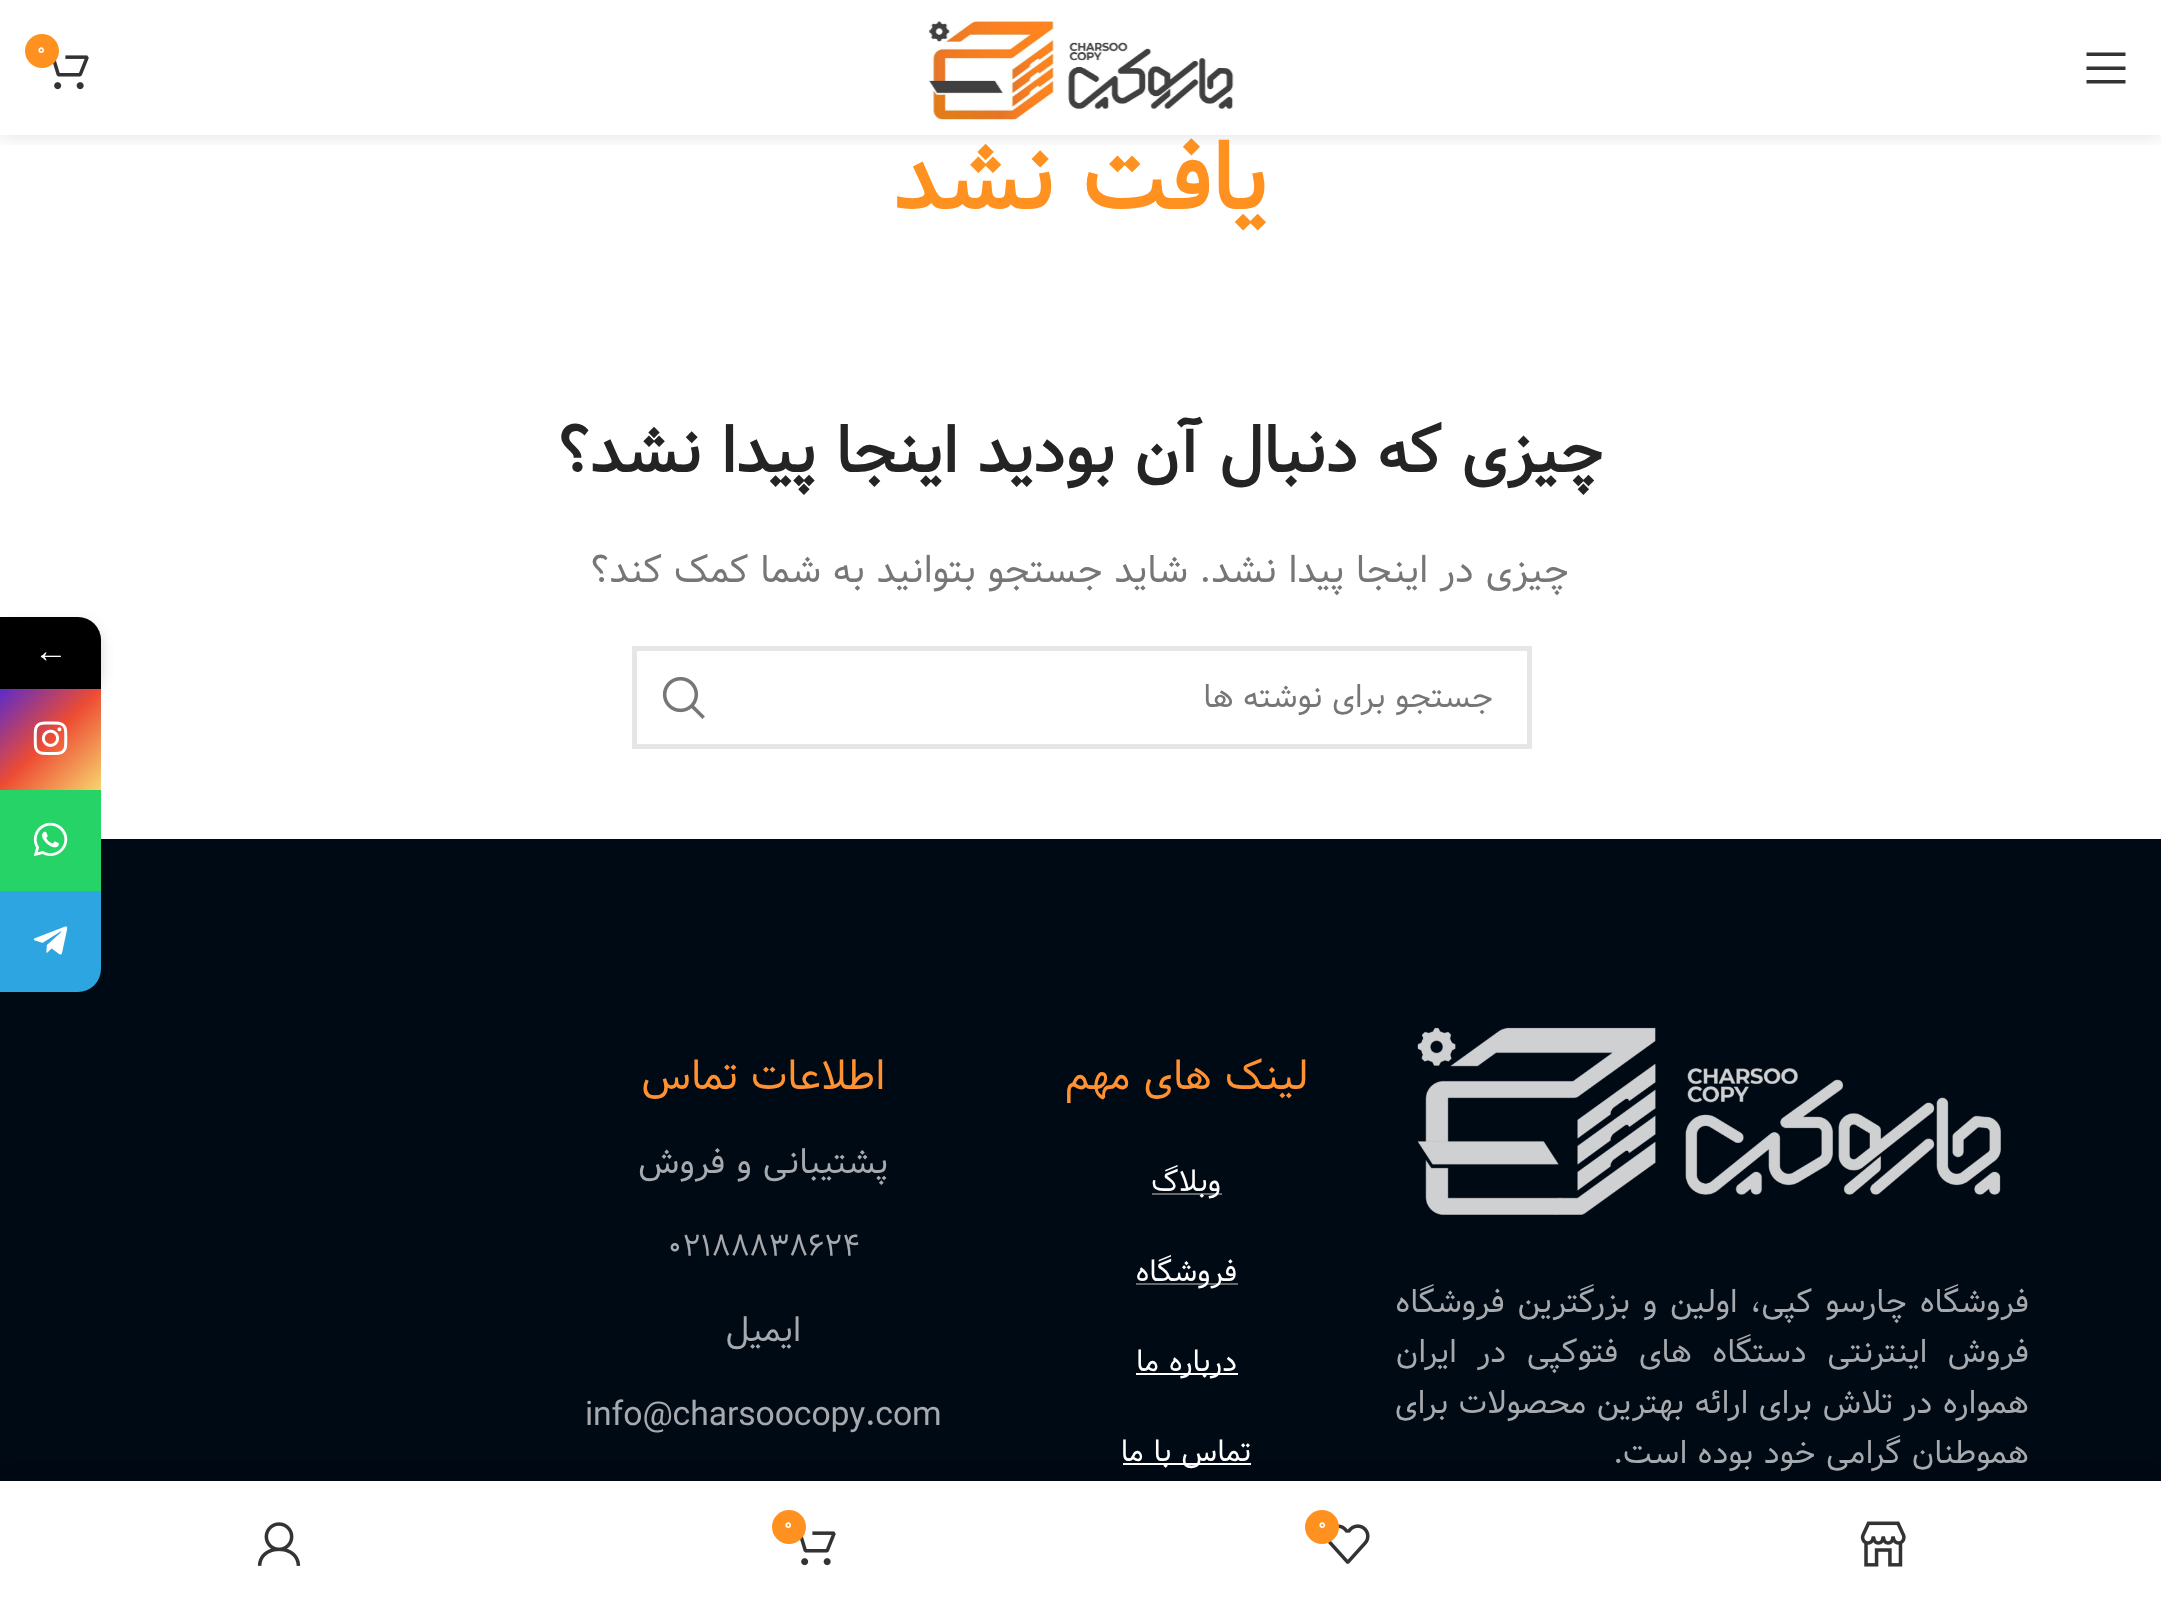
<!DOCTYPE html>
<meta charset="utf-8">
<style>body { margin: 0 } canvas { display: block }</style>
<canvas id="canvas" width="2161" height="1603"></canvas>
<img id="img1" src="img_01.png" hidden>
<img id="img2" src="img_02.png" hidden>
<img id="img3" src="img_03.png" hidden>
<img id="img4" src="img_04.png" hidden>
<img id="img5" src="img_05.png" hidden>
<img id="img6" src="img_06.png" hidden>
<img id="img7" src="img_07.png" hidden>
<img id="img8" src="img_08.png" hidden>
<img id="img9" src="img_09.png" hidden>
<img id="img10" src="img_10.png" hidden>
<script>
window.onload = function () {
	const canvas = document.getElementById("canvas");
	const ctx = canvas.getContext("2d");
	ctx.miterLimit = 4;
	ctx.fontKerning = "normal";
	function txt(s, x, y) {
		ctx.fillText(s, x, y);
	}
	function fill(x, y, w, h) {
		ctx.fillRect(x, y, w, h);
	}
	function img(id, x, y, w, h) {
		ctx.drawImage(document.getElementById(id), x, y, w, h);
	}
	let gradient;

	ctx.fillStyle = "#FFFFFF";
	fill(0, 0, 2161, 1603);
	ctx.save();
	ctx.beginPath();
	ctx.rect(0, 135, 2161, 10);
	ctx.clip();
	ctx.fillStyle = "rgba(0, 0, 0, 0.1)";
	ctx.filter = "blur(9px)";
	ctx.beginPath();
	ctx.rect(0, 2, 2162, 135);
	ctx.fill();
	ctx.filter = "none";
	ctx.restore();
	img("img1", 928, 21, 306, 102);
	img("img2", 53, 55, 36, 35);
	ctx.fillStyle = "#FE911F";
	ctx.beginPath();
	ctx.arc(42, 51, 17, 0, Math.PI * 2);
	ctx.fill();
	ctx.fillStyle = "#333333";
	ctx.beginPath();
	ctx.moveTo(2086.5, 56);
	ctx.lineTo(2125.5, 56);
	ctx.lineTo(2125.5, 52.5);
	ctx.lineTo(2086.5, 52.5);
	ctx.closePath();
	ctx.moveTo(2086.5, 70);
	ctx.lineTo(2125.5, 70);
	ctx.lineTo(2125.5, 66.5);
	ctx.lineTo(2086.5, 66.5);
	ctx.closePath();
	ctx.moveTo(2086.5, 83.5);
	ctx.lineTo(2125.5, 83.5);
	ctx.lineTo(2125.5, 80);
	ctx.lineTo(2086.5, 80);
	ctx.closePath();
	ctx.fill();
	ctx.strokeStyle = "#E6E6E6";
	ctx.lineWidth = 5;
	ctx.strokeRect(634.5, 648.5, 895, 98);
	img("img3", 662, 677, 43, 42);
	ctx.fillStyle = "#000A14";
	fill(0, 839, 2161, 642);
	img("img4", 1417, 1027, 584, 188);
	ctx.fillStyle = "#696969";
	fill(1152, 1193, 70, 2);
	fill(1136, 1283, 102, 2);
	ctx.fillStyle = "#FFFFFF";
	fill(1136, 1373, 102, 2);
	fill(1123, 1463, 128, 2);
	ctx.fillStyle = "rgba(0, 0, 0, 0.16)";
	ctx.filter = "blur(7px)";
	ctx.beginPath();
	ctx.roundRect(0, 623, 101, 72, 23);
	ctx.fill();
	ctx.filter = "none";
	ctx.fillStyle = "#000000";
	ctx.beginPath();
	ctx.roundRect(0, 617, 101, 72, [0, 23, 0, 0]);
	ctx.fill();
	gradient = ctx.createLinearGradient(0, 687, 101, 789);
	gradient.addColorStop(0, "#582BCD");
	gradient.addColorStop(0.5, "#ED4C33");
	gradient.addColorStop(1, "#F7D36F");
	ctx.fillStyle = gradient;
	fill(0, 689, 101, 101);
	img("img5", 33, 721, 35, 34);
	ctx.fillStyle = "#26D367";
	fill(0, 790, 101, 101);
	img("img6", 33, 822, 35, 35);
	ctx.fillStyle = "#2CA5E0";
	ctx.beginPath();
	ctx.roundRect(0, 891, 101, 101, [0, 0, 23, 0]);
	ctx.fill();
	img("img7", 33, 926, 35, 29);
	ctx.fillStyle = "rgba(0, 0, 0, 0.12)";
	ctx.filter = "blur(10px)";
	ctx.beginPath();
	ctx.rect(0, 1481, 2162, 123);
	ctx.fill();
	ctx.filter = "none";
	ctx.fillStyle = "#FFFFFF";
	fill(0, 1481, 2161, 122);
	img("img8", 1860, 1521, 46, 46);
	img("img9", 1327, 1524, 43, 40);
	ctx.fillStyle = "#FE911F";
	ctx.beginPath();
	ctx.arc(1322, 1527, 17, 0, Math.PI * 2);
	ctx.fill();
	img("img2", 800, 1531, 36, 35);
	ctx.beginPath();
	ctx.arc(789, 1527, 17, 0, Math.PI * 2);
	ctx.fill();
	img("img10", 257, 1522, 44, 44);
	ctx.font = "20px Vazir";
	ctx.fillStyle = "#FFFFFF";
	txt("0", 36, 56);
	ctx.letterSpacing = "-0.1px";
	ctx.wordSpacing = "1px";
	ctx.direction = "rtl";
	ctx.font = "bold 91px Vazir";
	ctx.fillStyle = "#FE911F";
	txt("یافت نشد", 1267, 209);
	ctx.wordSpacing = "0.5px";
	ctx.font = "bold 63px Vazir";
	ctx.fillStyle = "#242424";
	txt("چیزی که دنبال آن بودید اینجا پیدا نشد؟", 1603, 472);
	ctx.font = "37.1px Vazir";
	ctx.fillStyle = "#767676";
	txt("چیزی در اینجا پیدا نشد. شاید جستجو بتوانید به شما کمک کند؟", 1569, 582);
	ctx.letterSpacing = "0px";
	ctx.wordSpacing = "0px";
	ctx.font = "31.5px Vazir";
	txt("جستجو برای نوشته ها", 1493, 707);
	ctx.letterSpacing = "-0.1px";
	ctx.wordSpacing = "3.5px";
	ctx.fillStyle = "#A6A9AD";
	txt("فروشگاه چارسو کپی، اولین و بزرگترین فروشگاه", 2029, 1312);
	ctx.wordSpacing = "11px";
	txt("فروش اینترنتی دستگاه های فتوکپی در ایران", 2029, 1362);
	ctx.wordSpacing = "1px";
	txt("همواره در تلاش برای ارائه بهترین محصولات برای", 2029, 1413);
	txt("هموطنان گرامی خود بوده است.", 2029, 1463);
	ctx.font = "40.5px Vazir";
	ctx.fillStyle = "#FF9130";
	txt("لینک های مهم", 1308, 1089);
	ctx.wordSpacing = "0px";
	ctx.font = "29.25px Vazir";
	ctx.fillStyle = "#FFFFFF";
	txt("وبلاگ", 1221, 1191);
	txt("فروشگاه", 1237, 1281);
	ctx.wordSpacing = "1px";
	txt("درباره ما", 1237, 1371);
	txt("تماس با ما", 1251, 1461);
	ctx.font = "40.5px Vazir";
	ctx.fillStyle = "#FF9130";
	txt("اطلاعات تماس", 885, 1089);
	ctx.font = "33.75px Vazir";
	ctx.fillStyle = "#A6A9AD";
	txt("پشتیبانی و فروش", 888, 1173);
	ctx.wordSpacing = "0px";
	ctx.direction = "ltr";
	ctx.font = "30px Vazir";
	txt("02188838624", 667, 1256);
	ctx.direction = "rtl";
	ctx.font = "33.75px Vazir";
	txt("ایمیل", 801, 1341);
	ctx.direction = "ltr";
	txt("info@charsoocopy.com", 585, 1425);
	ctx.font = "33.75px Liberation Serif";
	ctx.fillStyle = "#FFFFFF";
	txt("←", 34, 662);
	ctx.letterSpacing = "0px";
	ctx.font = "20px Vazir";
	txt("0", 1317, 1531);
	txt("0", 783, 1531);
};
</script>
